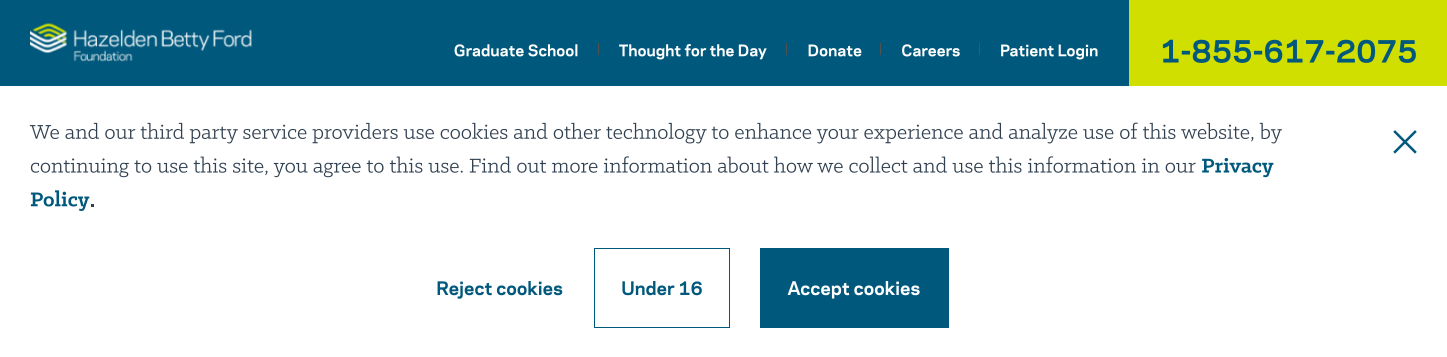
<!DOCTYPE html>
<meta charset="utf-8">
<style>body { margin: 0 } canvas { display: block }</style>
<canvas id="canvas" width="1447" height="357"></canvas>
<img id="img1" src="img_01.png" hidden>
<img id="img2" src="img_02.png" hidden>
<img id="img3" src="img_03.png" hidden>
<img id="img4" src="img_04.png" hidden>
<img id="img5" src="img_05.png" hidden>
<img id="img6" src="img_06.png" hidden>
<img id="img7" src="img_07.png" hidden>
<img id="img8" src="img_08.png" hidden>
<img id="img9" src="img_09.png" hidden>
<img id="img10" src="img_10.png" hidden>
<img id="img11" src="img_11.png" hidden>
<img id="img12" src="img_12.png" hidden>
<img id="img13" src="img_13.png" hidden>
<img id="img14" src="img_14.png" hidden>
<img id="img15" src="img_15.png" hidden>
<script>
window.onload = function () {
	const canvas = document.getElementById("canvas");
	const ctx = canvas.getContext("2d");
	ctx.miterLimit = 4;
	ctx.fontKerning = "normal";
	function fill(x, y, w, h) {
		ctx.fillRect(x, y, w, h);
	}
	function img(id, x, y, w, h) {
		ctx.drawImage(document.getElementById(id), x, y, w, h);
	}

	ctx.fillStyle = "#00587C";
	fill(0, 0, 1447, 357);
	img("img1", 30, 23, 222, 39);
	img("img2", 454, 44, 124, 13);
	ctx.fillStyle = "#525252";
	fill(598, 43, 1, 12);
	img("img3", 619, 44, 148, 16);
	fill(786, 43, 1, 12);
	img("img4", 808, 44, 54, 13);
	fill(880, 43, 1, 12);
	img("img5", 902, 44, 58, 13);
	fill(979, 43, 1, 12);
	img("img6", 1001, 44, 97, 16);
	ctx.fillStyle = "#D0DF00";
	fill(1129, 0, 318, 86);
	img("img7", 1162, 39, 254, 24);
	ctx.fillStyle = "#FFFFFF";
	fill(0, 86, 1447, 271);
	img("img8", 29, 122, 1253, 22);
	img("img9", 30, 156, 1166, 22);
	img("img10", 1202, 157, 72, 21);
	img("img11", 30, 190, 60, 21);
	ctx.fillStyle = "#304050";
	fill(91, 204, 3, 3);
	img("img12", 1393, 130, 24, 24);
	img("img13", 437, 281, 126, 18);
	ctx.strokeStyle = "#00587C";
	ctx.strokeRect(594.5, 248.5, 135, 79);
	img("img14", 622, 281, 80, 15);
	ctx.fillStyle = "#00587C";
	fill(760, 248, 189, 80);
	img("img15", 787, 281, 133, 18);
};
</script>
